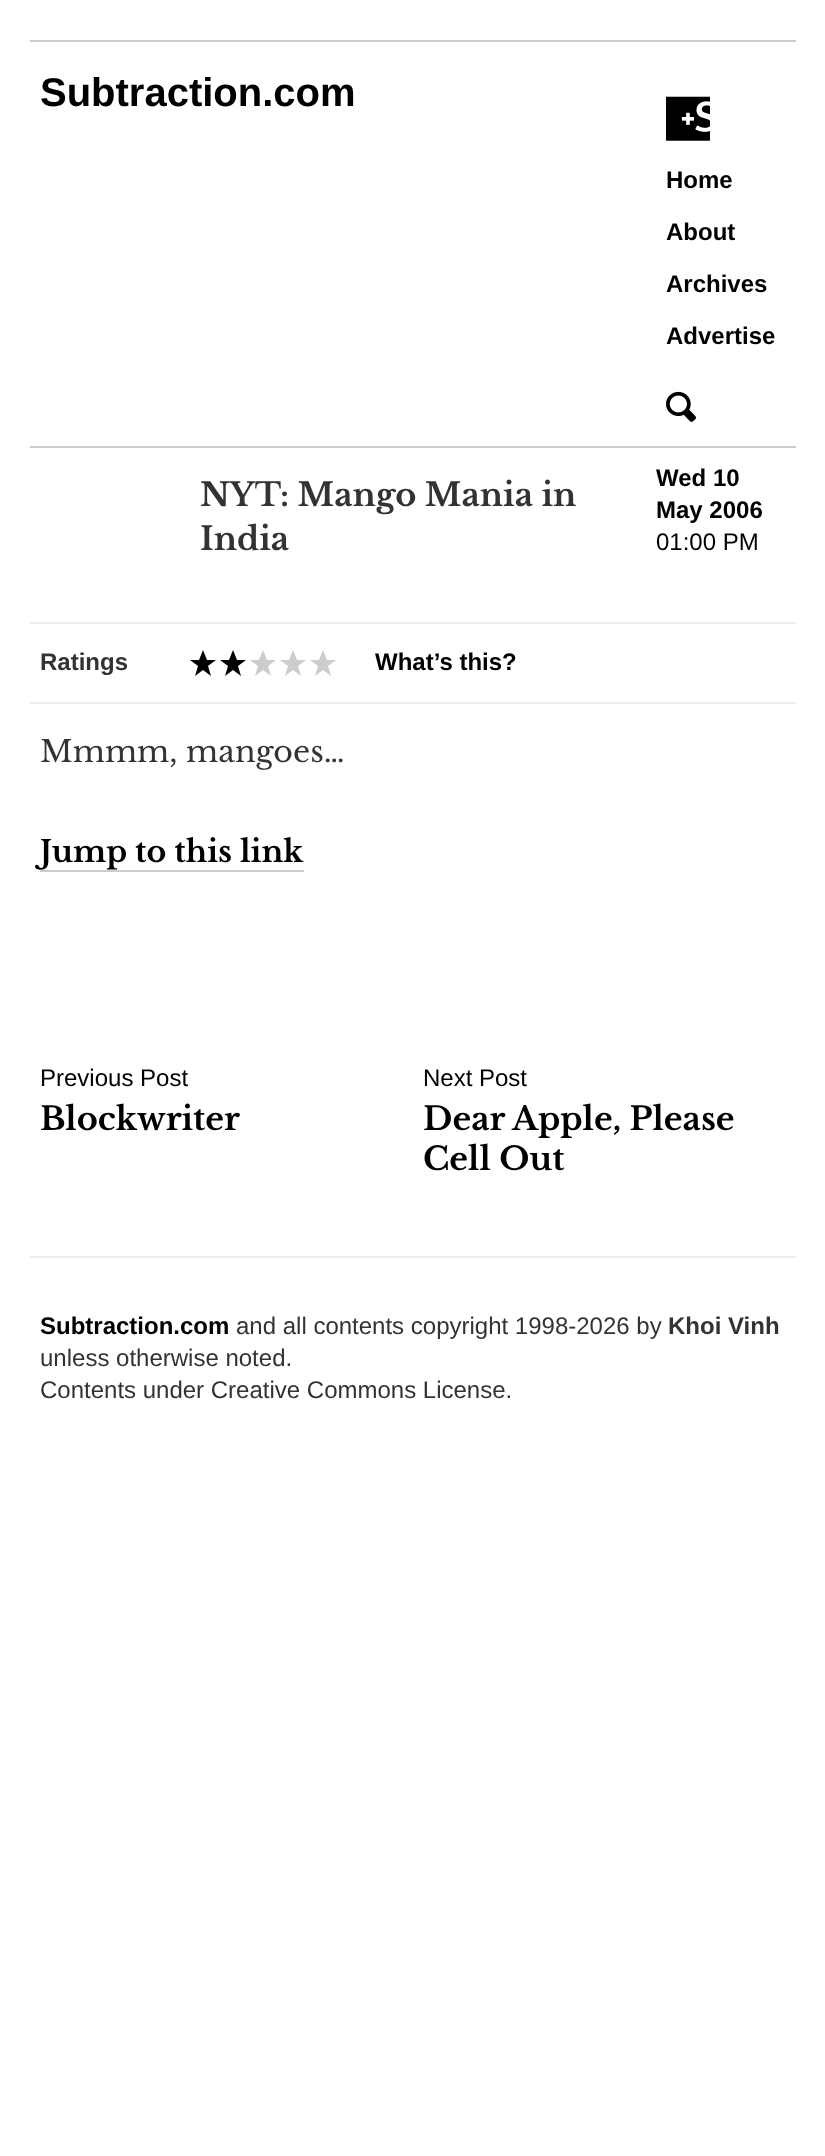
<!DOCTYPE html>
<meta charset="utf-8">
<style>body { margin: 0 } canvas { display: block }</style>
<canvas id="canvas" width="825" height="2156"></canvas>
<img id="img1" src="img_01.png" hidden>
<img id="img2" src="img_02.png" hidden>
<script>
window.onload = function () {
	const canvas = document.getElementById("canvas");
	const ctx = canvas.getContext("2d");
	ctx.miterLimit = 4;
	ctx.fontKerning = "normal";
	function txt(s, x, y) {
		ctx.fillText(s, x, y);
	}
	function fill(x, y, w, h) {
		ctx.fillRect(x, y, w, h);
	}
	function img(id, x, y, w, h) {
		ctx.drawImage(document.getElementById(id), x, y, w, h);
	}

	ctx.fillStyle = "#FFFFFF";
	fill(0, 0, 825, 2156);
	ctx.fillStyle = "#CCCCCC";
	fill(30, 40, 766, 2);
	img("img1", 666, 391, 30, 31);
	img("img2", 666, 96, 44, 45);
	fill(30, 446, 766, 2);
	ctx.fillStyle = "#EDEDED";
	fill(30, 622, 766, 2);
	fill(30, 702, 766, 2);
	ctx.fillStyle = "#000000";
	ctx.beginPath();
	ctx.moveTo(203, 650);
	ctx.lineTo(207, 660);
	ctx.lineTo(216, 660);
	ctx.lineTo(208, 666);
	ctx.lineTo(211, 676);
	ctx.lineTo(203, 670);
	ctx.lineTo(195, 676);
	ctx.lineTo(198, 666);
	ctx.lineTo(190, 660);
	ctx.lineTo(199, 660);
	ctx.closePath();
	ctx.moveTo(233, 650);
	ctx.lineTo(237, 660);
	ctx.lineTo(246, 660);
	ctx.lineTo(238, 666);
	ctx.lineTo(241, 676);
	ctx.lineTo(233, 670);
	ctx.lineTo(225, 676);
	ctx.lineTo(228, 666);
	ctx.lineTo(220, 660);
	ctx.lineTo(229, 660);
	ctx.closePath();
	ctx.fill();
	ctx.fillStyle = "#CCCCCC";
	ctx.beginPath();
	ctx.moveTo(263, 650);
	ctx.lineTo(267, 660);
	ctx.lineTo(276, 660);
	ctx.lineTo(268, 666);
	ctx.lineTo(271, 676);
	ctx.lineTo(263, 670);
	ctx.lineTo(255, 676);
	ctx.lineTo(258, 666);
	ctx.lineTo(250, 660);
	ctx.lineTo(259, 660);
	ctx.closePath();
	ctx.moveTo(293, 650);
	ctx.lineTo(297, 660);
	ctx.lineTo(306, 660);
	ctx.lineTo(298, 666);
	ctx.lineTo(301, 676);
	ctx.lineTo(293, 670);
	ctx.lineTo(285, 676);
	ctx.lineTo(288, 666);
	ctx.lineTo(280, 660);
	ctx.lineTo(289, 660);
	ctx.closePath();
	ctx.moveTo(323, 650);
	ctx.lineTo(327, 660);
	ctx.lineTo(336, 660);
	ctx.lineTo(328, 666);
	ctx.lineTo(331, 676);
	ctx.lineTo(323, 670);
	ctx.lineTo(315, 676);
	ctx.lineTo(318, 666);
	ctx.lineTo(310, 660);
	ctx.lineTo(319, 660);
	ctx.closePath();
	ctx.fill();
	fill(40, 870, 264, 2);
	ctx.fillStyle = "#EDEDED";
	fill(30, 1256, 766, 2);
	ctx.font = "bold 40px Liberation Sans";
	ctx.fillStyle = "#000000";
	txt("Subtraction.com", 40, 106);
	ctx.font = "bold 24px Liberation Sans";
	txt("Home", 666, 188);
	txt("About", 666, 240);
	txt("Archives", 666, 292);
	txt("Advertise", 666, 344);
	ctx.font = "bold 32px Libre Baskerville";
	ctx.fillStyle = "#333333";
	txt("NYT: Mango Mania in", 200, 506);
	txt("India", 200, 550);
	ctx.font = "bold 24px Liberation Sans";
	ctx.fillStyle = "#000000";
	txt("Wed 10", 656, 486);
	txt("May 2006", 656, 518);
	ctx.font = "24px Liberation Sans";
	txt("01:00 PM", 656, 550);
	ctx.font = "bold 24px Liberation Sans";
	ctx.fillStyle = "#333333";
	txt("Ratings", 40, 670);
	ctx.fillStyle = "#000000";
	txt("What’s this?", 375, 670);
	ctx.font = "30px Libre Baskerville";
	ctx.fillStyle = "#333333";
	txt("Mmmm, mangoes…", 40, 762);
	ctx.font = "bold 30px Libre Baskerville";
	ctx.fillStyle = "#000000";
	txt("Jump to this link", 40, 862);
	ctx.font = "24px Liberation Sans";
	txt("Previous Post", 40, 1086);
	ctx.font = "bold 32px Libre Baskerville";
	txt("Blockwriter", 40, 1130);
	ctx.font = "24px Liberation Sans";
	txt("Next Post", 423, 1086);
	ctx.font = "bold 32px Libre Baskerville";
	txt("Dear Apple, Please", 423, 1130);
	txt("Cell Out", 423, 1170);
	ctx.font = "bold 24px Liberation Sans";
	txt("Subtraction.com", 40, 1334);
	ctx.font = "24px Liberation Sans";
	ctx.fillStyle = "#333333";
	txt("and all contents copyright 1998-2026 by", 236, 1334);
	ctx.font = "bold 24px Liberation Sans";
	txt("Khoi Vinh", 668, 1334);
	ctx.font = "24px Liberation Sans";
	txt("unless otherwise noted.", 40, 1366);
	txt("Contents under Creative Commons License.", 40, 1398);
};
</script>
